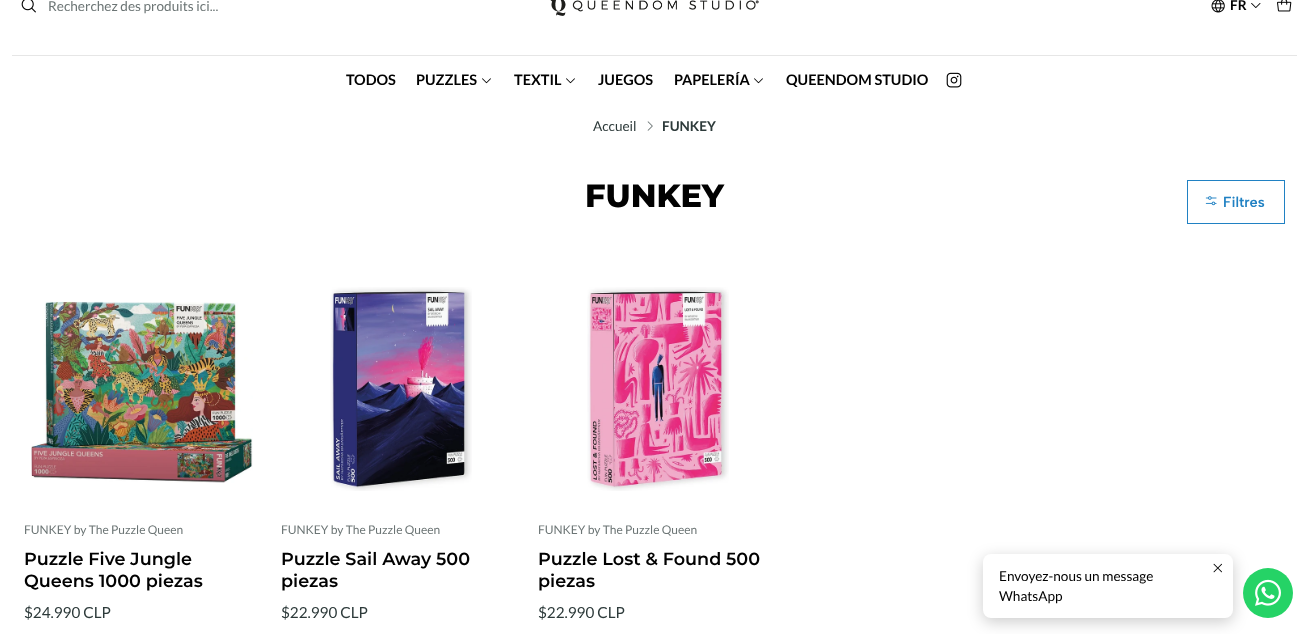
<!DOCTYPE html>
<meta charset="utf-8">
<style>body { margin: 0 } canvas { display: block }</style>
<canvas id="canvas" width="1309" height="634"></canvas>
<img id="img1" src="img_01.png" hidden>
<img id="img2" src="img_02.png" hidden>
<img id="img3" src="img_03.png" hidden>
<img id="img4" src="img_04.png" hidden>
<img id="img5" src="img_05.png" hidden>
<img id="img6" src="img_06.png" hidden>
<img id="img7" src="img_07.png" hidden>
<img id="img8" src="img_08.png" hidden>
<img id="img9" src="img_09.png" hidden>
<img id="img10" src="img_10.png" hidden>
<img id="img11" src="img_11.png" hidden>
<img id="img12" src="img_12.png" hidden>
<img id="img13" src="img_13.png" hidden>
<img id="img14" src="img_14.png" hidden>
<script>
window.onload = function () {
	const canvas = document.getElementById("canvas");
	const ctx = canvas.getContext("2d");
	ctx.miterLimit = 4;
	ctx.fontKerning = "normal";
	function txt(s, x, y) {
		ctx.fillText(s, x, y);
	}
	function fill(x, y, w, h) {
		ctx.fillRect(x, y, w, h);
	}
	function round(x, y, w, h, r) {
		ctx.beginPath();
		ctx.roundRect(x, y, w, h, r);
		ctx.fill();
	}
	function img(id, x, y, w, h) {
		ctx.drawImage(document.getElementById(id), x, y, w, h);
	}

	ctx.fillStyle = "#FFFFFF";
	fill(0, 0, 1309, 634);
	img("img1", 21, 0, 15, 13);
	img("img2", 550, 0, 209, 16);
	img("img3", 1211, 0, 14, 13);
	img("img4", 1251, 3, 10, 5);
	img("img5", 1277, 0, 15, 12);
	ctx.fillStyle = "#E6E6E6";
	fill(12, 55, 1285, 1);
	img("img6", 482, 78, 9, 6);
	img("img6", 566, 78, 9, 6);
	img("img6", 754, 78, 9, 6);
	img("img7", 946, 72, 16, 16);
	img("img8", 647, 121, 6, 10);
	ctx.strokeStyle = "#2081C3";
	ctx.strokeRect(1187.5, 180.5, 97, 43);
	img("img9", 1205, 196, 12, 10);
	img("img10", 31, 301, 222, 182);
	img("img11", 330, 287, 142, 204);
	img("img12", 587, 287, 142, 204);
	ctx.fillStyle = "rgba(0, 0, 0, 0.2)";
	ctx.filter = "blur(7.5px)";
	ctx.beginPath();
	ctx.roundRect(983, 558, 250, 64, 8);
	ctx.fill();
	ctx.filter = "none";
	ctx.fillStyle = "#FFFFFF";
	round(983, 554, 250, 64, 8);
	img("img13", 1213, 563, 9, 10);
	ctx.fillStyle = "#25D366";
	ctx.beginPath();
	ctx.arc(1268, 593, 25, 0, Math.PI * 2);
	ctx.fill();
	img("img14", 1255, 579, 26, 27);
	ctx.font = "13.6px Lato";
	ctx.fillStyle = "#6C7575";
	txt("Recherchez des produits ici...", 48, 11);
	ctx.font = "bold 13.6px Lato";
	ctx.fillStyle = "#010101";
	txt("FR", 1230, 10);
	ctx.font = "bold 14.5px Lato";
	txt("TODOS", 346, 85);
	txt("PUZZLES", 416, 85);
	txt("TEXTIL", 514, 85);
	txt("JUEGOS", 598, 85);
	txt("PAPELERÍA", 674, 85);
	txt("QUEENDOM STUDIO", 786, 85);
	ctx.font = "13.6px Lato";
	ctx.fillStyle = "#2D3A3A";
	txt("Accueil", 593, 131);
	ctx.font = "bold 13.6px Lato";
	txt("FUNKEY", 662, 131);
	ctx.font = "800 32px Montserrat";
	ctx.fillStyle = "#010101";
	txt("FUNKEY", 585, 207);
	ctx.font = "600 14.5px Albert Sans";
	ctx.fillStyle = "#2081C3";
	txt("Filtres", 1223, 207);
	ctx.font = "12px Lato";
	ctx.fillStyle = "#6C7575";
	txt("FUNKEY by The Puzzle Queen", 24, 534);
	ctx.font = "600 17.6px Montserrat";
	ctx.fillStyle = "#010101";
	txt("Puzzle Five Jungle", 24, 565);
	txt("Queens 1000 piezas", 24, 587);
	ctx.font = "15.25px Lato";
	ctx.fillStyle = "#2D3A3A";
	txt("$24.990 CLP", 24, 618);
	ctx.font = "12px Lato";
	ctx.fillStyle = "#6C7575";
	txt("FUNKEY by The Puzzle Queen", 281, 534);
	ctx.font = "600 17.6px Montserrat";
	ctx.fillStyle = "#010101";
	txt("Puzzle Sail Away 500", 281, 565);
	txt("piezas", 281, 587);
	ctx.font = "15.25px Lato";
	ctx.fillStyle = "#2D3A3A";
	txt("$22.990 CLP", 281, 618);
	ctx.font = "12px Lato";
	ctx.fillStyle = "#6C7575";
	txt("FUNKEY by The Puzzle Queen", 538, 534);
	ctx.font = "600 17.6px Montserrat";
	ctx.fillStyle = "#010101";
	txt("Puzzle Lost & Found 500", 538, 565);
	txt("piezas", 538, 587);
	ctx.font = "15.25px Lato";
	ctx.fillStyle = "#2D3A3A";
	txt("$22.990 CLP", 538, 618);
	ctx.font = "13.6px Lato";
	ctx.fillStyle = "#010101";
	txt("Envoyez-nous un message", 999, 581);
	txt("WhatsApp", 999, 601);
};
</script>
